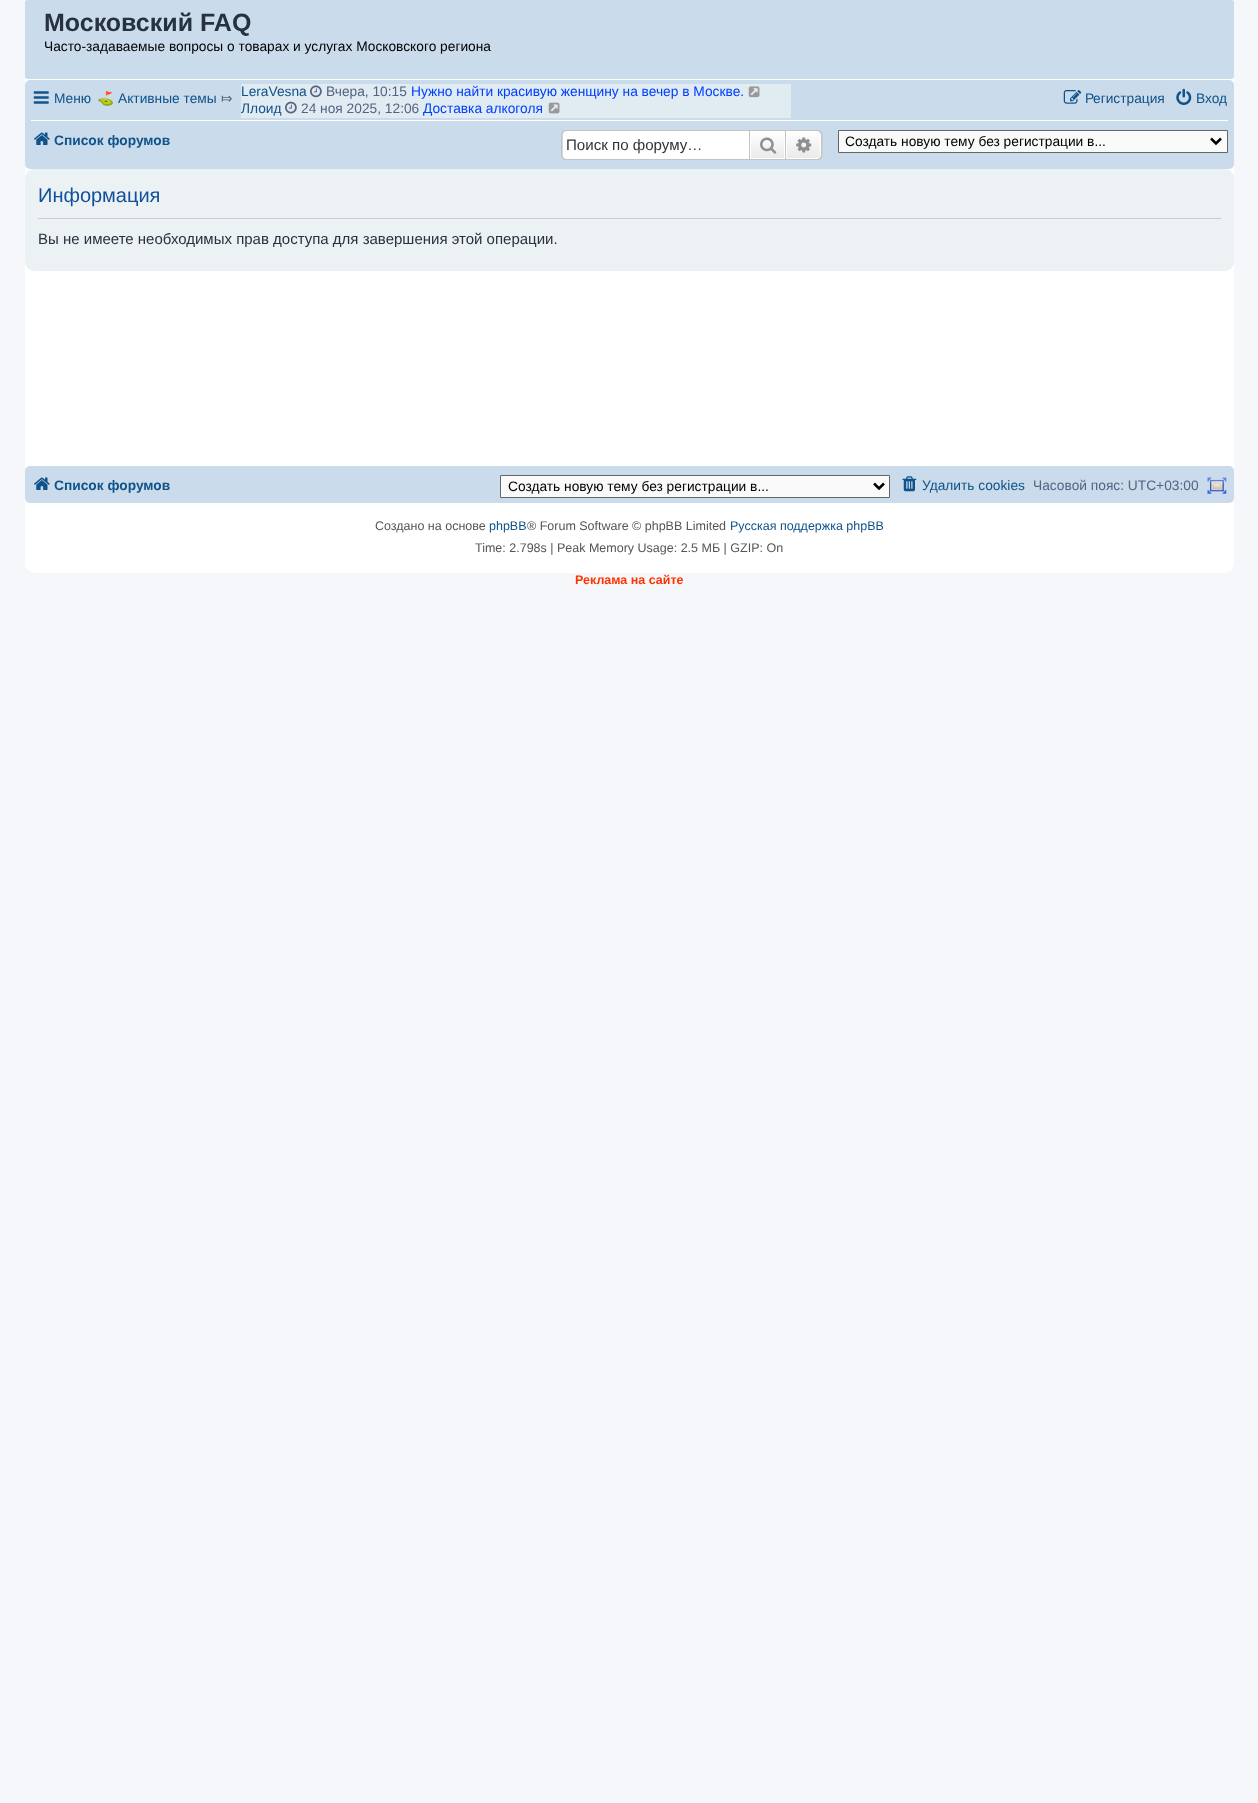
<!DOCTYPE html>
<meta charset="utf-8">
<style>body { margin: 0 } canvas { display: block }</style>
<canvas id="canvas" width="1258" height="1803"></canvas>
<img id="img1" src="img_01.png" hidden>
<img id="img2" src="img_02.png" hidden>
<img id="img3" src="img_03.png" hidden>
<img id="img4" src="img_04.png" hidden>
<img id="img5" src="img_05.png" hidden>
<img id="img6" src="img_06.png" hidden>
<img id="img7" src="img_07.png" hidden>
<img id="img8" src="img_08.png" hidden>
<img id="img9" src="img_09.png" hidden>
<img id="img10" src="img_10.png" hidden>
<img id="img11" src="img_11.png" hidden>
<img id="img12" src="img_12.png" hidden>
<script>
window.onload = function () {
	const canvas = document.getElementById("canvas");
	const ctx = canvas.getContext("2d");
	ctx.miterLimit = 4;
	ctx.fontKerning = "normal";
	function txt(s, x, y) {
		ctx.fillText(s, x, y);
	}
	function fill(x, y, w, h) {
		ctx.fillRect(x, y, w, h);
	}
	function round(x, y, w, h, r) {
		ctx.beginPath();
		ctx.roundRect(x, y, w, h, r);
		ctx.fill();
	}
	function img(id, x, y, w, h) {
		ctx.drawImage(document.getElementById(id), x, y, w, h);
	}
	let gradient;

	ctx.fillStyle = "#F5F7FA";
	fill(0, 0, 1258, 1803);
	ctx.fillStyle = "#FFFFFF";
	round(25, 0, 1209, 573, 10);
	ctx.fillStyle = "#CADCEB";
	round(25, 0, 1209, 79, 2.5);
	round(25, 80, 1209, 89, 5);
	img("img1", 33, 91, 16, 13);
	ctx.fillStyle = "#E1EBF2";
	fill(241, 84, 550, 34);
	img("img2", 310, 85, 12, 13);
	img("img3", 748, 86, 12, 12);
	img("img4", 285, 101, 12, 13);
	img("img5", 548, 102, 12, 12);
	img("img6", 1063, 90, 19, 14);
	img("img7", 1176, 88, 16, 17);
	ctx.fillStyle = "#FFFFFF";
	fill(31, 120, 1197, 1);
	img("img8", 34, 132, 16, 13);
	ctx.beginPath();
	ctx.roundRect(563, 131, 186, 28, [4, 0, 0, 4]);
	ctx.fill();
	ctx.fillStyle = "#C7C3BF";
	ctx.beginPath();
	ctx.moveTo(566, 130);
	ctx.lineTo(749, 130);
	ctx.lineTo(749, 160);
	ctx.lineTo(566, 160);
	ctx.bezierCurveTo(563, 160, 561, 158, 561, 155);
	ctx.lineTo(561, 135);
	ctx.bezierCurveTo(561, 132, 563, 130, 566, 130);
	ctx.closePath();
	ctx.moveTo(566, 131);
	ctx.lineTo(749, 131);
	ctx.lineTo(749, 159);
	ctx.lineTo(566, 159);
	ctx.bezierCurveTo(564, 159, 562, 157, 562, 155);
	ctx.lineTo(562, 135);
	ctx.bezierCurveTo(562, 133, 564, 131, 566, 131);
	ctx.closePath();
	ctx.fill("evenodd");
	gradient = ctx.createLinearGradient(768, 131, 768, 159);
	gradient.addColorStop(0, "#FFFFFF");
	gradient.addColorStop(1, "#E9E9E9");
	ctx.fillStyle = gradient;
	fill(751, 132, 33, 26);
	ctx.strokeStyle = "#FFFFFF";
	ctx.strokeRect(750.5, 131.5, 34, 27);
	ctx.strokeStyle = "#C7C3BF";
	ctx.strokeRect(749.5, 130.5, 36, 29);
	img("img9", 760, 137, 17, 17);
	gradient = ctx.createLinearGradient(804, 131, 804, 159);
	gradient.addColorStop(0, "#FFFFFF");
	gradient.addColorStop(1, "#E9E9E9");
	ctx.fillStyle = gradient;
	ctx.beginPath();
	ctx.roundRect(786.5, 131.5, 34, 27, [0, 3.5, 3.5, 0]);
	ctx.fill();
	ctx.strokeStyle = "#FFFFFF";
	ctx.stroke();
	ctx.fillStyle = "#C7C3BF";
	ctx.beginPath();
	ctx.moveTo(786, 130);
	ctx.lineTo(817.5, 130);
	ctx.bezierCurveTo(820.5, 130, 822.5, 132, 822.5, 135);
	ctx.lineTo(822.5, 155);
	ctx.bezierCurveTo(822.5, 158, 820.5, 160, 817.5, 160);
	ctx.lineTo(786, 160);
	ctx.closePath();
	ctx.moveTo(786, 131);
	ctx.lineTo(817.5, 131);
	ctx.bezierCurveTo(819.5, 131, 821, 133, 821, 135);
	ctx.lineTo(821, 155);
	ctx.bezierCurveTo(821, 157, 819.5, 159, 817.5, 159);
	ctx.lineTo(786, 159);
	ctx.closePath();
	ctx.fill("evenodd");
	img("img10", 796, 137, 16, 16);
	ctx.fillStyle = "#FAFAFA";
	ctx.beginPath();
	ctx.rect(838.5, 130.5, 389, 22);
	ctx.fill();
	ctx.strokeStyle = "#666666";
	ctx.stroke();
	ctx.beginPath();
	ctx.moveTo(1211, 138.5);
	ctx.lineTo(1216, 143.5);
	ctx.lineTo(1221, 138.5);
	ctx.strokeStyle = "#000000";
	ctx.lineWidth = 2.5;
	ctx.stroke();
	ctx.fillStyle = "#ECF1F3";
	round(25, 169, 1209, 102, 9);
	ctx.fillStyle = "#CCCCCC";
	fill(38, 218, 1183, 1);
	ctx.fillStyle = "#CADCEB";
	round(25, 466, 1209, 37, 5);
	img("img8", 34, 477, 16, 13);
	ctx.fillStyle = "#FAFAFA";
	ctx.beginPath();
	ctx.rect(500.5, 475.5, 389, 22);
	ctx.fill();
	ctx.strokeStyle = "#666666";
	ctx.lineWidth = 1;
	ctx.stroke();
	ctx.beginPath();
	ctx.moveTo(874, 483.5);
	ctx.lineTo(879, 488.5);
	ctx.lineTo(884, 483.5);
	ctx.strokeStyle = "#000000";
	ctx.lineWidth = 2.5;
	ctx.stroke();
	img("img11", 902, 476, 15, 16);
	img("img12", 1207, 477, 20, 17);
	ctx.font = "bold 25px Liberation Sans";
	ctx.fillStyle = "#28313F";
	txt("Московский FAQ", 44, 31);
	ctx.font = "13.75px Liberation Sans";
	ctx.fillStyle = "#000000";
	txt("Часто-задаваемые вопросы о товарах и услугах Московского региона", 44, 51);
	ctx.fillStyle = "#105289";
	txt("Меню", 54, 103);
	ctx.font = "13.75px Noto Color Emoji";
	ctx.fillStyle = "#536482";
	txt("⛳", 97, 103);
	ctx.font = "13.75px Liberation Sans";
	ctx.fillStyle = "#105289";
	txt("Активные темы", 118, 103);
	ctx.font = "13.75px DejaVu Sans";
	ctx.fillStyle = "#536482";
	txt("⤇", 221, 103);
	ctx.font = "13.75px Liberation Sans";
	ctx.fillStyle = "#105289";
	txt("LeraVesna", 241, 96);
	ctx.fillStyle = "#536482";
	txt("Вчера, 10:15", 326, 96);
	ctx.fillStyle = "#0040FF";
	txt("Нужно найти красивую женщину на вечер в Москве.", 411, 96);
	ctx.fillStyle = "#105289";
	txt("Ллоид", 241, 113);
	ctx.fillStyle = "#536482";
	txt("24 ноя 2025, 12:06", 301, 113);
	ctx.fillStyle = "#0040FF";
	txt("Доставка алкоголя", 423, 113);
	ctx.fillStyle = "#105289";
	txt("Р", 1085, 103);
	txt("егистрация", 1093, 103);
	txt("Вход", 1196, 103);
	ctx.font = "bold 13.75px Liberation Sans";
	txt("Список форумов", 54, 145);
	ctx.font = "15.1px Liberation Sans";
	ctx.fillStyle = "#333333";
	txt("Поиск по форуму…", 566, 150);
	ctx.font = "13.75px Liberation Sans";
	ctx.fillStyle = "#000000";
	txt("Создать новую тему без регистрации в...", 845, 146);
	ctx.font = "20px Liberation Sans";
	ctx.fillStyle = "#115098";
	txt("Информация", 38, 202);
	ctx.font = "15px Liberation Sans";
	ctx.fillStyle = "#28313F";
	txt("Вы не имеете необходимых прав доступа для завершения этой операции.", 38, 244);
	ctx.font = "bold 13.75px Liberation Sans";
	ctx.fillStyle = "#105289";
	txt("Список форумов", 54, 490);
	ctx.font = "13.75px Liberation Sans";
	ctx.fillStyle = "#000000";
	txt("Создать новую тему без регистрации в...", 508, 491);
	ctx.fillStyle = "#105289";
	txt("Удалить cookies", 922, 490);
	ctx.fillStyle = "#536482";
	txt("Часовой пояс: UTC+03:00", 1033, 490);
	ctx.font = "12.5px Liberation Sans";
	ctx.fillStyle = "#555555";
	txt("Создано на основе", 375, 530);
	ctx.fillStyle = "#105289";
	txt("phpBB", 489, 530);
	ctx.fillStyle = "#555555";
	txt("® Forum Software © phpBB Limited", 527, 530);
	ctx.fillStyle = "#105289";
	txt("Русская поддержка phpBB", 730, 530);
	ctx.fillStyle = "#555555";
	txt("Time: 2.798s | Peak Memory Usage: 2.5 МБ | GZIP: On", 475, 552);
	ctx.font = "bold 12.5px Liberation Sans";
	ctx.fillStyle = "#FF3300";
	txt("Реклама на сайте", 575, 584);
};
</script>
